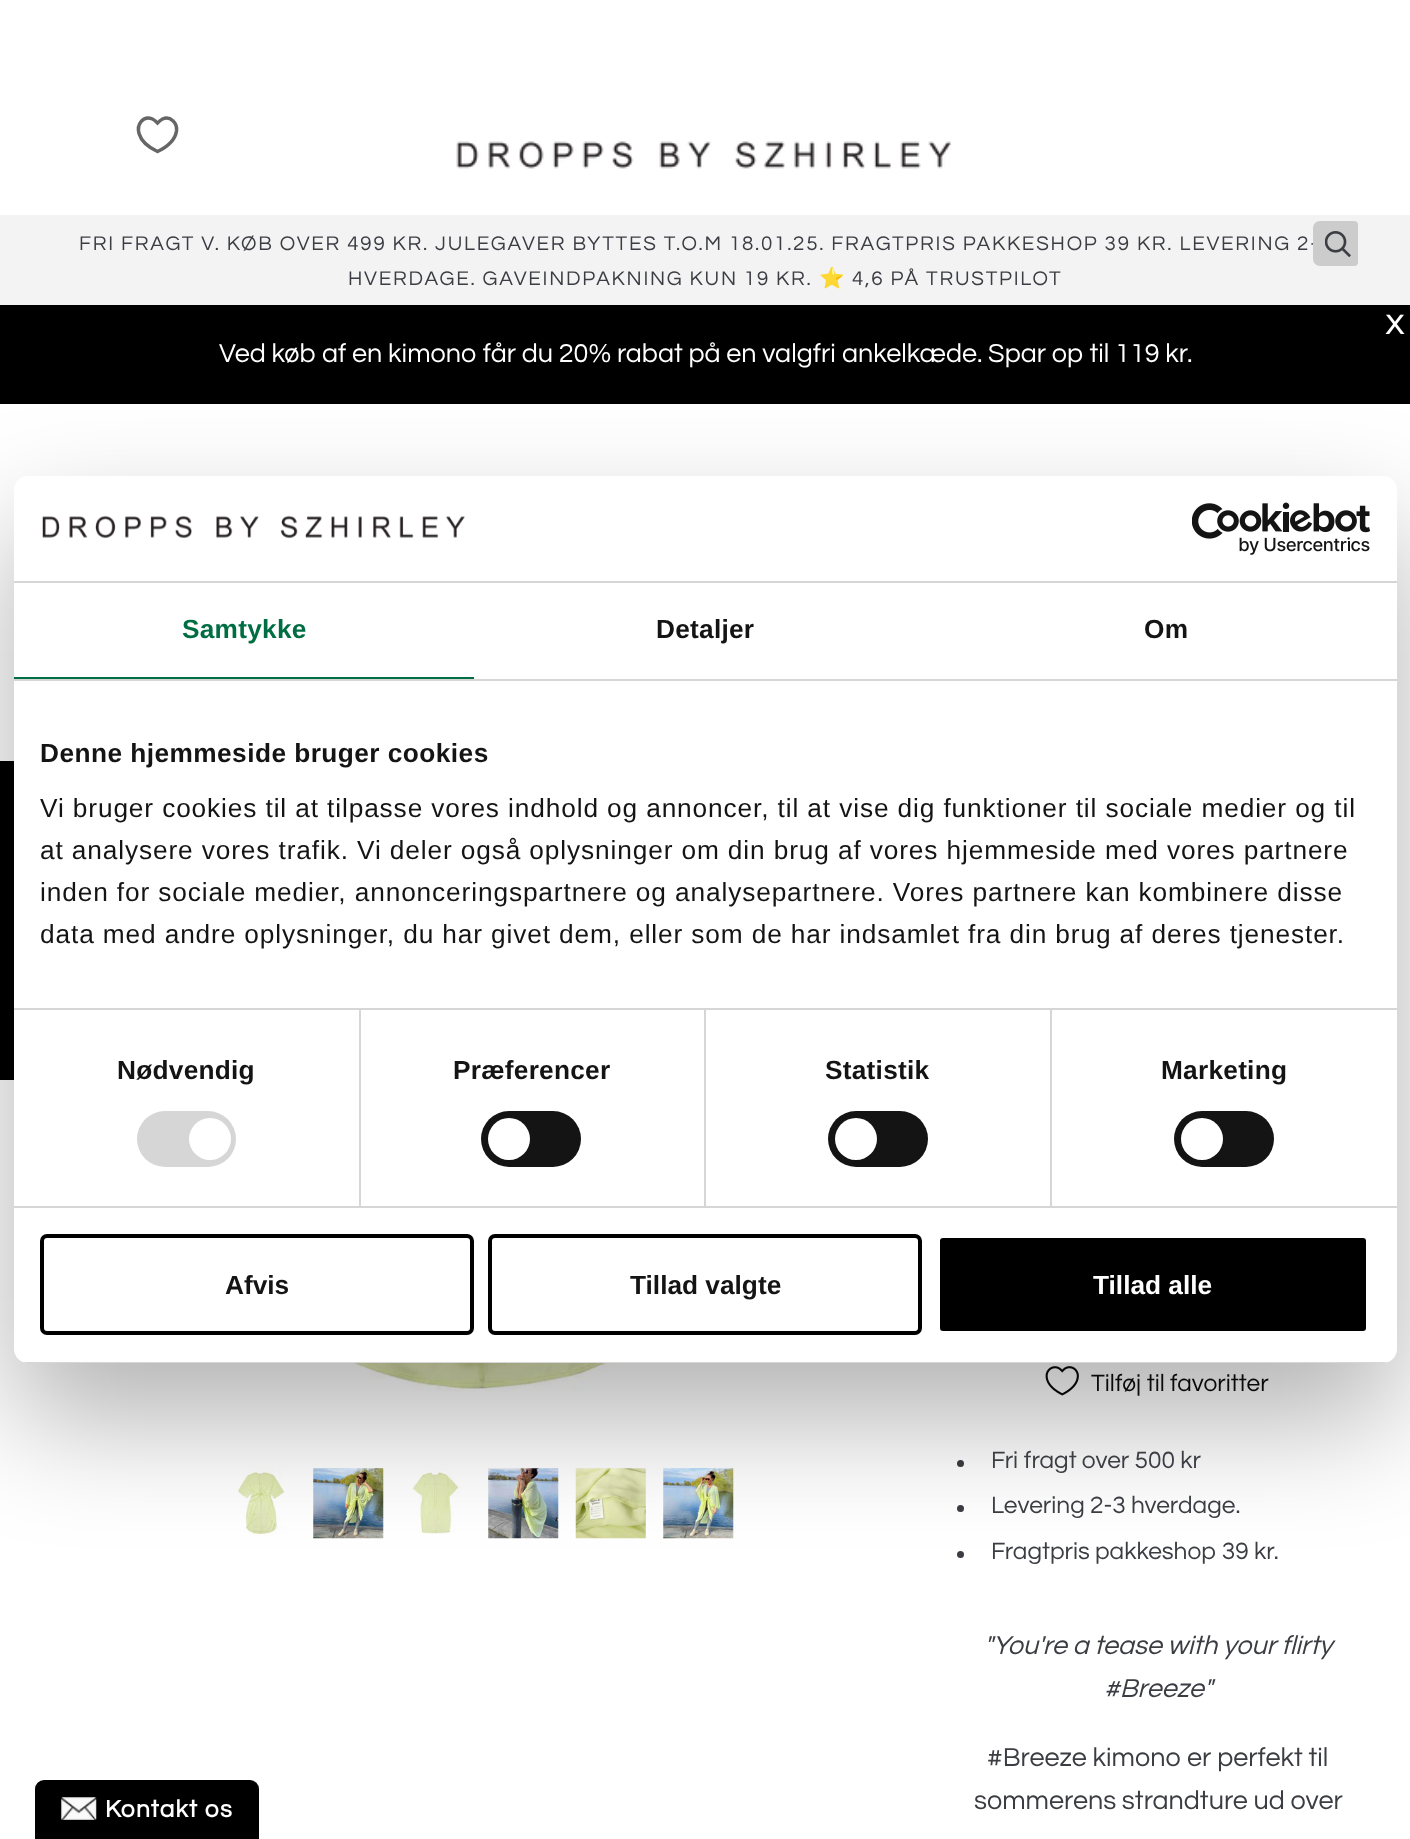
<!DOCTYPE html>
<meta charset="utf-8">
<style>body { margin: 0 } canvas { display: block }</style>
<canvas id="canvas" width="1410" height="1839"></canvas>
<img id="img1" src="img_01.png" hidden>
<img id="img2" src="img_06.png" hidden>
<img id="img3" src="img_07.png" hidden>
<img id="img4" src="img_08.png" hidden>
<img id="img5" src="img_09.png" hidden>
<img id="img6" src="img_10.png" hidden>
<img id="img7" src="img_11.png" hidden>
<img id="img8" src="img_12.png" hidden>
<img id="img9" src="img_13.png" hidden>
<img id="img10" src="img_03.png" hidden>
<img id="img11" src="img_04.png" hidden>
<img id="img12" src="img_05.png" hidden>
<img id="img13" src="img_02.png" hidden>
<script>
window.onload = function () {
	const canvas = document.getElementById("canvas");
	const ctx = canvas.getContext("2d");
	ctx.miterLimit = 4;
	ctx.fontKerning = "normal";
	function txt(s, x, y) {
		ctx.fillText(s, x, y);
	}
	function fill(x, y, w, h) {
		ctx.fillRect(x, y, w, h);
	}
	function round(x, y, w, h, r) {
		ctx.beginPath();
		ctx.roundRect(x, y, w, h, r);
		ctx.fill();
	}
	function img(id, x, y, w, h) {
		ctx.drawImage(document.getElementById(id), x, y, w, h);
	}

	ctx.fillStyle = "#FFFFFF";
	fill(0, 0, 1410, 1839);
	ctx.beginPath();
	ctx.moveTo(157.5, 151.5);
	ctx.bezierCurveTo(150, 148, 141.5, 142, 139, 133.5);
	ctx.bezierCurveTo(136.5, 124.5, 143, 115, 152.5, 119);
	ctx.bezierCurveTo(154.5, 120, 156, 121.5, 157.5, 123);
	ctx.bezierCurveTo(159, 121.5, 160.5, 120, 162.5, 119);
	ctx.bezierCurveTo(170.5, 115.5, 177.5, 123, 176.5, 131);
	ctx.bezierCurveTo(175, 140.5, 166, 147.5, 157.5, 151.5);
	ctx.closePath();
	ctx.strokeStyle = "#666666";
	ctx.lineWidth = 3.5;
	ctx.stroke();
	img("img1", 456, 141, 495, 28);
	ctx.fillStyle = "#F3F3F3";
	fill(0, 215, 1410, 90);
	ctx.fillStyle = "#000000";
	fill(0, 305, 1410, 99);
	fill(0, 761, 14, 319);
	img("img2", 203, 1363, 561, 29);
	img("img3", 237, 1468, 48, 68);
	img("img4", 313, 1468, 71, 71);
	img("img5", 412, 1468, 49, 67);
	img("img6", 488, 1468, 71, 71);
	img("img7", 575, 1468, 71, 71);
	img("img8", 663, 1468, 71, 71);
	img("img9", 1045, 1366, 34, 30);
	ctx.fillStyle = "#3B3D43";
	ctx.beginPath();
	ctx.arc(960.5, 1463.5, 3.5, 0, Math.PI * 2);
	ctx.fill();
	ctx.beginPath();
	ctx.arc(960.5, 1508.5, 3.5, 0, Math.PI * 2);
	ctx.fill();
	ctx.beginPath();
	ctx.arc(960.5, 1554.5, 3.5, 0, Math.PI * 2);
	ctx.fill();
	ctx.fillStyle = "rgba(0, 0, 0, 0.3)";
	ctx.filter = "blur(59.5px)";
	ctx.beginPath();
	ctx.roundRect(14, 532, 1383, 887, 14);
	ctx.fill();
	ctx.filter = "none";
	ctx.fillStyle = "#FFFFFF";
	round(14, 476, 1383, 887, 14);
	ctx.fillStyle = "#D6D6D6";
	fill(14, 581, 1383, 2);
	img("img10", 42, 515, 423, 24);
	img("img11", 1192, 502, 178, 53);
	fill(14, 679, 1383, 2);
	ctx.fillStyle = "#006D43";
	fill(14, 677, 460, 2);
	ctx.fillStyle = "#D6D6D6";
	fill(14, 1008, 1383, 2);
	fill(14, 1206, 1383, 2);
	fill(359, 1010, 2, 196);
	round(137, 1111, 99, 56, 28);
	ctx.fillStyle = "#FFFFFF";
	ctx.beginPath();
	ctx.arc(210, 1139, 21, 0, Math.PI * 2);
	ctx.fill();
	ctx.fillStyle = "#D6D6D6";
	fill(704, 1010, 2, 196);
	ctx.fillStyle = "#141414";
	round(481, 1111, 100, 56, 28);
	ctx.fillStyle = "#FFFFFF";
	ctx.beginPath();
	ctx.arc(509, 1139, 21, 0, Math.PI * 2);
	ctx.fill();
	ctx.fillStyle = "#D6D6D6";
	fill(1050, 1010, 2, 196);
	ctx.fillStyle = "#141414";
	round(828, 1111, 100, 56, 28);
	ctx.fillStyle = "#FFFFFF";
	ctx.beginPath();
	ctx.arc(856, 1139, 21, 0, Math.PI * 2);
	ctx.fill();
	ctx.fillStyle = "#141414";
	round(1174, 1111, 100, 56, 28);
	ctx.fillStyle = "#FFFFFF";
	ctx.beginPath();
	ctx.arc(1202, 1139, 21, 0, Math.PI * 2);
	ctx.fill();
	ctx.save();
	ctx.beginPath();
	ctx.roundRect(14, 476, 1383, 887, 14);
	ctx.clip();
	ctx.fillStyle = "#D6D6D6";
	fill(23, 1362, 1365, 1);
	ctx.restore();
	ctx.beginPath();
	ctx.roundRect(42, 1236, 430, 97, 5);
	ctx.strokeStyle = "#000000";
	ctx.lineWidth = 4;
	ctx.stroke();
	ctx.beginPath();
	ctx.roundRect(490, 1236, 430, 97, 5);
	ctx.stroke();
	ctx.fillStyle = "#000000";
	ctx.beginPath();
	ctx.roundRect(938, 1236, 430, 97, 5);
	ctx.fill();
	ctx.strokeStyle = "#FFFFFF";
	ctx.stroke();
	ctx.beginPath();
	ctx.roundRect(35, 1780, 224, 59, [9, 9, 0, 0]);
	ctx.fill();
	img("img12", 61, 1797, 36, 23);
	ctx.letterSpacing = "1.75px";
	ctx.font = "20.58px Questrial";
	ctx.fillStyle = "#3B3D43";
	txt("FRI FRAGT V. KØB OVER 499 KR. JULEGAVER BYTTES T.O.M 18.01.25. FRAGTPRIS PAKKESHOP 39 KR. LEVERING 2-", 79, 250);
	txt("HVERDAGE. GAVEINDPAKNING KUN 19 KR.", 348, 285);
	ctx.font = "20.58px Noto Color Emoji";
	txt("⭐", 819, 285);
	ctx.font = "20.58px Questrial";
	txt("4,6 PÅ TRUSTPILOT", 852, 285);
	ctx.fillStyle = "#CCCCCC";
	ctx.beginPath();
	ctx.roundRect(1313, 221, 45, 45, [7, 4, 4, 7]);
	ctx.fill();
	img("img13", 1325, 231, 26, 26);
	ctx.letterSpacing = "0px";
	ctx.font = "bold 28px Questrial";
	ctx.fillStyle = "#FFFFFF";
	txt("X", 1386, 334);
	ctx.font = "26.95px Questrial";
	txt("Ved køb af en kimono får du 20% rabat på en valgfri ankelkæde. Spar op til 119 kr.", 219, 362);
	ctx.letterSpacing = "0.25px";
	ctx.font = "bold 26.25px Liberation Sans";
	ctx.fillStyle = "#006D43";
	txt("Samtykke", 182, 638);
	ctx.fillStyle = "#141414";
	txt("Detaljer", 656, 638);
	txt("Om", 1144, 638);
	ctx.letterSpacing = "0.45px";
	txt("Denne hjemmeside bruger cookies", 40, 762);
	ctx.letterSpacing = "0.88px";
	ctx.font = "26.25px Liberation Sans";
	txt("Vi bruger cookies til at tilpasse vores indhold og annoncer, til at vise dig funktioner til sociale medier og til", 40, 817);
	txt("at analysere vores trafik. Vi deler også oplysninger om din brug af vores hjemmeside med vores partnere", 40, 859);
	txt("inden for sociale medier, annonceringspartnere og analysepartnere. Vores partnere kan kombinere disse", 40, 901);
	txt("data med andre oplysninger, du har givet dem, eller som de har indsamlet fra din brug af deres tjenester.", 40, 943);
	ctx.letterSpacing = "0.25px";
	ctx.font = "bold 26.25px Liberation Sans";
	txt("Nødvendig", 117, 1079);
	txt("Præferencer", 453, 1079);
	txt("Statistik", 825, 1079);
	txt("Marketing", 1161, 1079);
	ctx.letterSpacing = "0px";
	txt("Afvis", 225, 1294);
	txt("Tillad valgte", 630, 1294);
	ctx.fillStyle = "#FFFFFF";
	txt("Tillad alle", 1093, 1294);
	ctx.letterSpacing = "1.25px";
	ctx.font = "bold 24.5px Questrial";
	txt("Kontakt os", 105, 1817);
	ctx.letterSpacing = "0px";
	ctx.font = "24.5px Questrial";
	ctx.fillStyle = "#0A0A0A";
	txt("Tilføj til favoritter", 1091, 1391);
	ctx.fillStyle = "#3B3D43";
	txt("Fri fragt over 500 kr", 991, 1468);
	txt("Levering 2-3 hverdage.", 991, 1513);
	txt("Fragtpris pakkeshop 39 kr.", 991, 1559);
	ctx.font = "italic 26.95px Questrial";
	txt("\"You're a tease with your flirty", 984, 1654);
	txt("#Breeze\"", 1104, 1697);
	ctx.font = "26.95px Questrial";
	txt("#Breeze kimono er perfekt til", 987, 1766);
	txt("sommerens strandture ud over", 974, 1809);
};
</script>
